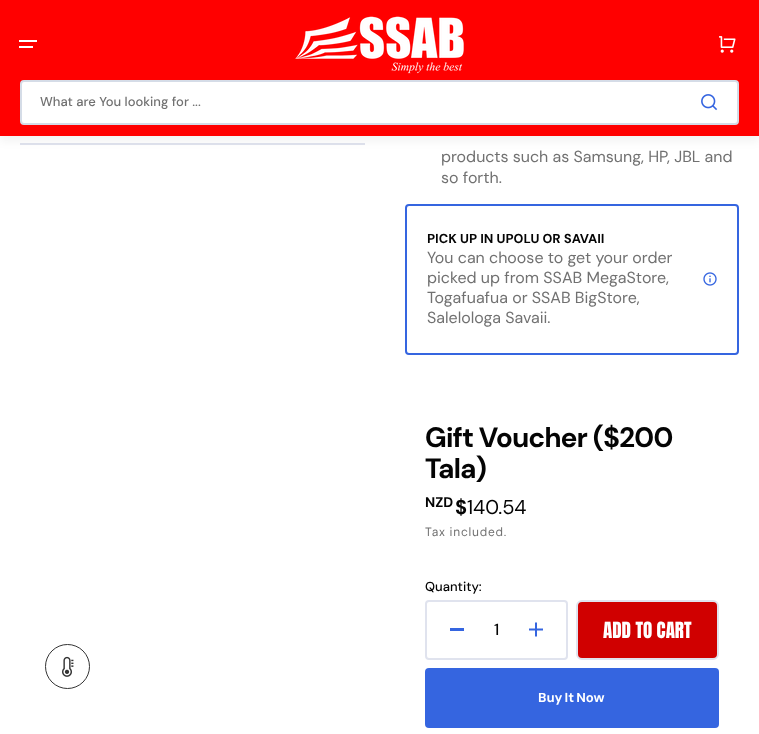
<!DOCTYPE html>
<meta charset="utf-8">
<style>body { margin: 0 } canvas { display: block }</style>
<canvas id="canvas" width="759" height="734"></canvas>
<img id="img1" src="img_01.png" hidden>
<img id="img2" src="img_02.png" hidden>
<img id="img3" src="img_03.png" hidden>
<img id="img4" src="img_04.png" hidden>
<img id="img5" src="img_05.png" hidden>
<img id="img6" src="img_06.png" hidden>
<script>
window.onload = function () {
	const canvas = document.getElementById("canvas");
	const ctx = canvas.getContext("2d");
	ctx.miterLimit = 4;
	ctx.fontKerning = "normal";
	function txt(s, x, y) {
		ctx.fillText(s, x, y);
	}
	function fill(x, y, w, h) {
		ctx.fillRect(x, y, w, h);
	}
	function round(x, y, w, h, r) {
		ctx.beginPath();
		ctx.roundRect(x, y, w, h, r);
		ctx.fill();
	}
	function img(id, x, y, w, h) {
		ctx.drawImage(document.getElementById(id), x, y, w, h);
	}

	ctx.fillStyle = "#FFFFFF";
	fill(0, 0, 759, 734);
	ctx.fillStyle = "#E0E3EE";
	fill(20, 143, 345, 2);
	ctx.fillStyle = "rgba(1, 1, 1, 0.05)";
	ctx.filter = "blur(5px)";
	ctx.beginPath();
	ctx.rect(0, 5, 759, 136);
	ctx.fill();
	ctx.filter = "none";
	ctx.fillStyle = "#FF0000";
	fill(0, 0, 759, 136);
	ctx.fillStyle = "#FFFFFF";
	fill(19, 40, 18, 2);
	fill(19, 46, 14, 2);
	img("img1", 295, 16, 169, 58);
	img("img2", 719, 36, 17, 17);
	ctx.beginPath();
	ctx.roundRect(21, 81, 717, 43, 3);
	ctx.fill();
	ctx.strokeStyle = "#D5DCE7";
	ctx.lineWidth = 2;
	ctx.stroke();
	img("img3", 701, 94, 17, 17);
	ctx.beginPath();
	ctx.arc(67.5, 666.5, 22, 0, Math.PI * 2);
	ctx.strokeStyle = "#333333";
	ctx.lineWidth = 1;
	ctx.stroke();
	img("img4", 62, 656, 12, 21);
	ctx.beginPath();
	ctx.roundRect(406, 205, 332, 149, 3);
	ctx.strokeStyle = "#3565E0";
	ctx.lineWidth = 2;
	ctx.stroke();
	img("img5", 703, 272, 14, 14);
	ctx.beginPath();
	ctx.roundRect(426, 601, 141, 58, 3);
	ctx.strokeStyle = "#E0E3EE";
	ctx.stroke();
	ctx.fillStyle = "#3565E0";
	fill(450, 628, 14, 3);
	img("img6", 529, 622, 14, 15);
	ctx.fillStyle = "#D00000";
	ctx.beginPath();
	ctx.roundRect(577, 601, 141, 58, 5);
	ctx.fill();
	ctx.stroke();
	ctx.fillStyle = "#3565E0";
	round(425, 668, 294, 60, 4);
	ctx.font = "500 13px DM Sans";
	ctx.fillStyle = "#717171";
	txt("What are You looking for ...", 40, 106);
	ctx.font = "16px DM Sans";
	txt("products such as Samsung, HP, JBL and", 441, 162);
	txt("so forth.", 441, 183);
	ctx.font = "bold 13px DM Sans";
	ctx.fillStyle = "#040404";
	txt("PICK UP IN UPOLU OR SAVAII", 427, 243);
	ctx.font = "16px DM Sans";
	ctx.fillStyle = "#717171";
	txt("You can choose to get your order", 427, 263);
	txt("picked up from SSAB MegaStore,", 427, 283);
	txt("Togafuafua or SSAB BigStore,", 427, 303);
	txt("Salelologa Savaii.", 427, 323);
	ctx.letterSpacing = "-0.6px";
	ctx.font = "bold 28px 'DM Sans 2'";
	ctx.fillStyle = "#040404";
	txt("Gift Voucher ($200", 425, 447);
	txt("Tala)", 425, 478);
	ctx.letterSpacing = "0px";
	ctx.font = "bold 14px 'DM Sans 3'";
	txt("NZD", 425, 507);
	ctx.font = "bold 20px 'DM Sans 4'";
	txt("$", 455, 514);
	ctx.font = "20px 'DM Sans 2'";
	txt("140.54", 467, 514);
	ctx.letterSpacing = "0.75px";
	ctx.font = "12px 'DM Sans 3'";
	ctx.fillStyle = "#717171";
	txt("Tax included.", 425, 536);
	ctx.letterSpacing = "0px";
	ctx.font = "500 13px DM Sans";
	ctx.fillStyle = "#040404";
	txt("Quantity:", 425, 591);
	ctx.font = "500 16px 'DM Sans 2'";
	txt("1", 494, 635);
	ctx.font = "19px Anton";
	ctx.fillStyle = "#FFFFFF";
	txt("ADD TO CART", 603, 638);
	ctx.wordSpacing = "-1px";
	ctx.font = "bold 13px DM Sans";
	txt("Buy It Now", 538, 702);
};
</script>
